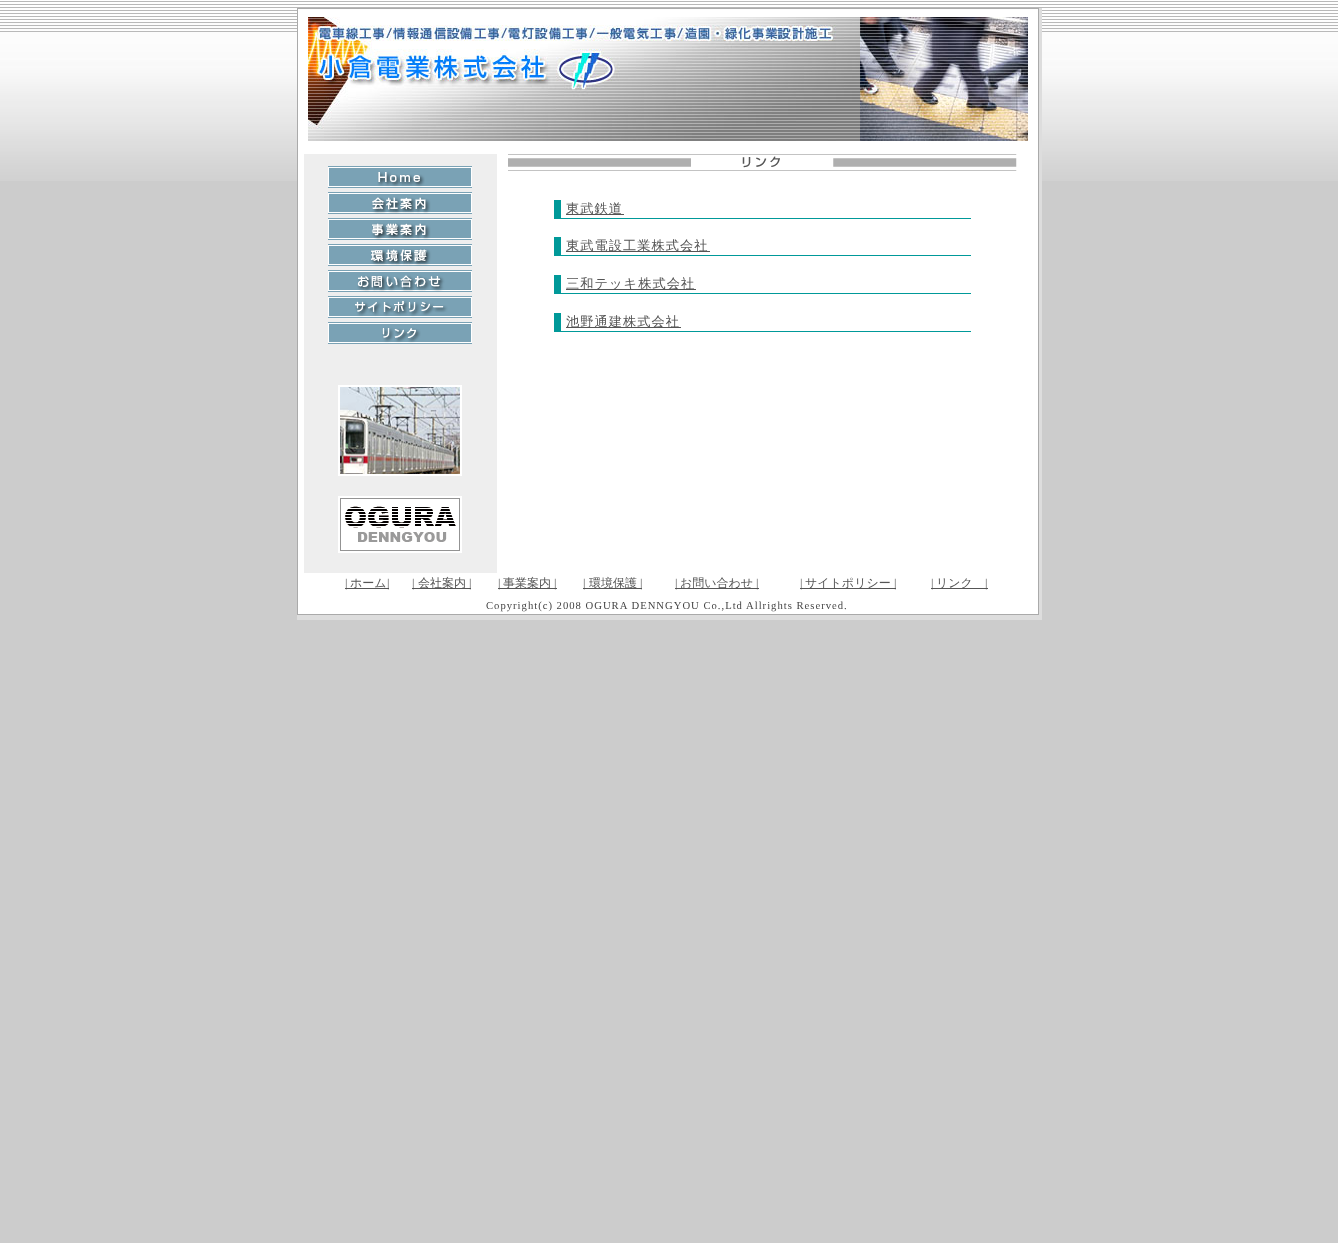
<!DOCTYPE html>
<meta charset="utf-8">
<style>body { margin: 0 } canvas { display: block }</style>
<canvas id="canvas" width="1338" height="1243"></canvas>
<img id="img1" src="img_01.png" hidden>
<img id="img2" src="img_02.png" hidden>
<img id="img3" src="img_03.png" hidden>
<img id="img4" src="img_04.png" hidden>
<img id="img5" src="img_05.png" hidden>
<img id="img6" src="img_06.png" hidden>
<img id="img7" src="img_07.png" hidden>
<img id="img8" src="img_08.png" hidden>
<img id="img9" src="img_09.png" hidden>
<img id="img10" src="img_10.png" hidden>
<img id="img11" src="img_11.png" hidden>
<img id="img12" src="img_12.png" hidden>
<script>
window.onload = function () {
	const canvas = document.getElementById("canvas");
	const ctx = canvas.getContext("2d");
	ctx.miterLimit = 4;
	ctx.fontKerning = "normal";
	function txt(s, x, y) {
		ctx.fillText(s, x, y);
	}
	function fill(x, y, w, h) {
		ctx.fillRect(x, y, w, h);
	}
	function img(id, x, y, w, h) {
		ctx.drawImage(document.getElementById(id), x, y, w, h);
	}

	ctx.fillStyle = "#CCCCCC";
	fill(0, 0, 1338, 1243);
	img("img1", 0, 0, 1338, 181);
	ctx.fillStyle = "#DDDDDD";
	fill(1039, 8, 3, 612);
	fill(297, 615, 745, 5);
	ctx.fillStyle = "#FFFFFF";
	fill(298, 10, 740, 604);
	ctx.strokeStyle = "#AAAAAA";
	ctx.strokeRect(297.5, 8.5, 741, 606);
	img("img2", 308, 17, 720, 124);
	ctx.fillStyle = "#EEEEEE";
	fill(304, 154, 193, 419);
	img("img3", 328, 166, 144, 22);
	img("img4", 328, 192, 144, 22);
	img("img5", 328, 218, 144, 22);
	img("img6", 328, 244, 144, 22);
	img("img7", 328, 270, 144, 22);
	img("img8", 328, 296, 144, 22);
	img("img9", 328, 322, 144, 22);
	ctx.strokeStyle = "#FFFFFF";
	ctx.lineWidth = 2;
	ctx.strokeRect(339, 386, 122, 89);
	img("img10", 340, 387, 120, 87);
	ctx.strokeRect(339, 497, 122, 55);
	img("img11", 340, 498, 120, 53);
	img("img12", 508, 154, 509, 17);
	ctx.fillStyle = "#009999";
	fill(554, 218, 417, 1);
	fill(554, 200, 7, 19);
	ctx.fillStyle = "#555555";
	fill(566, 214, 58, 1);
	ctx.fillStyle = "#009999";
	fill(554, 255, 417, 1);
	fill(554, 237, 7, 19);
	ctx.fillStyle = "#555555";
	fill(566, 251, 144, 1);
	ctx.fillStyle = "#009999";
	fill(554, 293, 417, 1);
	fill(554, 275, 7, 19);
	ctx.fillStyle = "#555555";
	fill(566, 289, 130, 1);
	ctx.fillStyle = "#009999";
	fill(554, 331, 417, 1);
	fill(554, 313, 7, 19);
	ctx.fillStyle = "#555555";
	fill(566, 327, 115, 1);
	fill(345, 588, 44, 1);
	fill(412, 588, 59, 1);
	fill(498, 588, 59, 1);
	fill(583, 588, 59, 1);
	fill(675, 588, 84, 1);
	fill(800, 588, 96, 1);
	fill(931, 588, 57, 1);
	ctx.letterSpacing = "1px";
	ctx.font = "500 13.25px WenQuanYi Zen Hei";
	txt("東武鉄道", 566, 213);
	txt("東武電設工業株式会社", 566, 250);
	txt("三和テッキ株式会社", 566, 288);
	txt("池野通建株式会社", 566, 326);
	ctx.letterSpacing = "0px";
	ctx.font = "12px Liberation Serif";
	txt("|", 345, 587);
	ctx.font = "500 12px WenQuanYi Zen Hei";
	txt("ホーム", 350, 587);
	ctx.font = "12px Liberation Serif";
	txt("|", 387, 587);
	txt("|", 412, 587);
	ctx.font = "500 12px WenQuanYi Zen Hei";
	txt("会社案内", 418, 587);
	ctx.font = "12px Liberation Serif";
	txt("|", 469, 587);
	txt("|", 498, 587);
	ctx.font = "500 12px WenQuanYi Zen Hei";
	txt("事業案内", 503, 587);
	ctx.font = "12px Liberation Serif";
	txt("|", 554, 587);
	txt("|", 583, 587);
	ctx.font = "500 12px WenQuanYi Zen Hei";
	txt("環境保護", 589, 587);
	ctx.font = "12px Liberation Serif";
	txt("|", 640, 587);
	txt("|", 675, 587);
	ctx.font = "500 12px WenQuanYi Zen Hei";
	txt("お問い合わせ", 680, 587);
	ctx.font = "12px Liberation Serif";
	txt("|", 756, 587);
	txt("|", 800, 587);
	ctx.font = "500 12px WenQuanYi Zen Hei";
	txt("サイトポリシー", 805, 587);
	ctx.font = "12px Liberation Serif";
	txt("|", 894, 587);
	txt("|", 931, 587);
	ctx.font = "500 12px WenQuanYi Zen Hei";
	txt("リンク", 936, 587);
	ctx.font = "12px Liberation Serif";
	txt("|", 985, 587);
	ctx.letterSpacing = "1px";
	ctx.font = "10.65px Liberation Serif";
	ctx.fillStyle = "#444444";
	txt("Copyright(c) 2008 OGURA DENNGYOU Co.,Ltd Allrights Reserved.", 486, 609);
};
</script>
